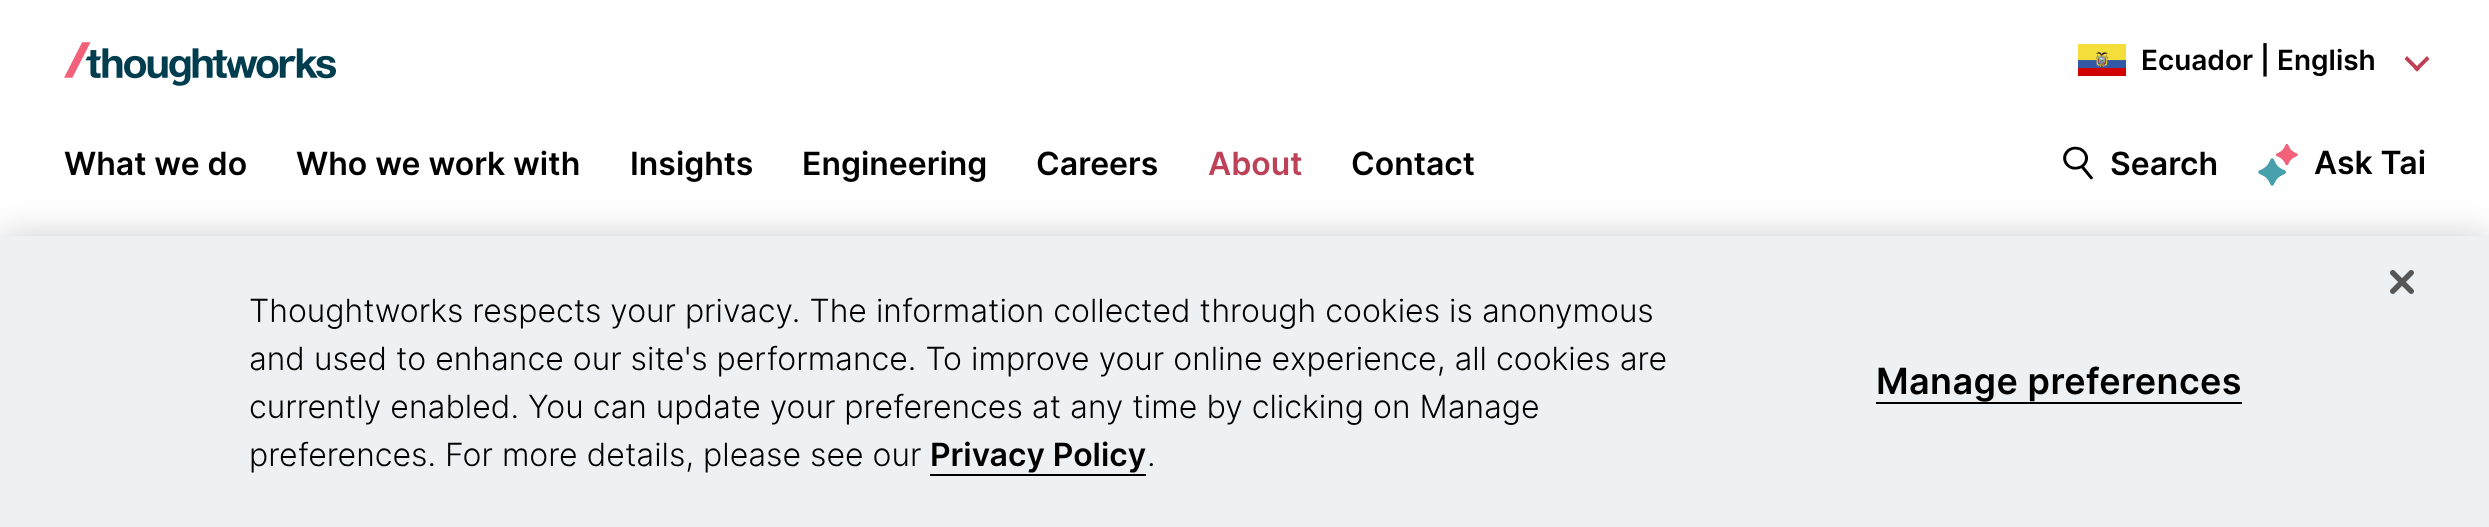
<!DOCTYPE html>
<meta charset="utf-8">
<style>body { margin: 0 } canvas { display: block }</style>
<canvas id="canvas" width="2489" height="527"></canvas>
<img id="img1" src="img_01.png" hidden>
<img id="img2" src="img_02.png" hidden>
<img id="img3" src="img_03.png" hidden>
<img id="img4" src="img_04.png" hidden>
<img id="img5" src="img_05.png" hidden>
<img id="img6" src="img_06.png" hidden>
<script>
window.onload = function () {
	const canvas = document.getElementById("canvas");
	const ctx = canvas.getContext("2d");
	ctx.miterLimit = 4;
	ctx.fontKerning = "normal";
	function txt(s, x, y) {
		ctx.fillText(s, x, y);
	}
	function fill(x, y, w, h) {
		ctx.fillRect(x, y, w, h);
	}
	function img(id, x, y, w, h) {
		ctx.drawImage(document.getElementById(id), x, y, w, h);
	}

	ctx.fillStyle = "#FFFFFF";
	fill(0, 0, 2489, 527);
	img("img1", 64, 42, 272, 44);
	img("img2", 2078, 44, 48, 32);
	ctx.fillStyle = "#BD4257";
	ctx.beginPath();
	ctx.moveTo(2429.5, 59);
	ctx.lineTo(2417, 71.5);
	ctx.lineTo(2414, 69);
	ctx.lineTo(2427, 56);
	ctx.closePath();
	ctx.fill();
	ctx.beginPath();
	ctx.moveTo(2420, 69);
	ctx.lineTo(2417, 71.5);
	ctx.lineTo(2404.5, 59);
	ctx.lineTo(2407, 56);
	ctx.closePath();
	ctx.fill();
	img("img3", 2063, 146, 30, 34);
	img("img4", 2258, 144, 40, 42);
	img("img5", 2258, 144, 40, 42);
	ctx.fillStyle = "rgba(0, 0, 0, 0.2)";
	ctx.filter = "blur(18px)";
	ctx.beginPath();
	ctx.rect(0, 236, 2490, 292);
	ctx.fill();
	ctx.filter = "none";
	ctx.fillStyle = "#EDF1F3";
	fill(0, 236, 2489, 291);
	img("img6", 2390, 270, 24, 24);
	ctx.fillStyle = "#000000";
	fill(930, 474, 216, 2);
	fill(1876, 402, 366, 2);
	ctx.font = "600 28px Inter";
	txt("Ecuador | English", 2141, 70);
	ctx.font = "600 32px Inter";
	txt("What we do", 64, 175);
	txt("Who we work with", 296, 175);
	txt("Insights", 630, 175);
	txt("Engineering", 802, 175);
	txt("Careers", 1036, 175);
	ctx.fillStyle = "#BD4257";
	txt("About", 1208, 175);
	ctx.fillStyle = "#000000";
	txt("Contact", 1351, 175);
	txt("Search", 2110, 175);
	txt("Ask Tai", 2314, 174);
	ctx.font = "300 32px Inter";
	txt("Thoughtworks respects your privacy. The information collected through cookies is anonymous", 249, 322);
	txt("and used to enhance our site's performance. To improve your online experience, all cookies are", 249, 370);
	txt("currently enabled. You can update your preferences at any time by clicking on Manage", 249, 418);
	txt("preferences. For more details, please see our", 249, 466);
	ctx.font = "600 32px Inter";
	txt("Privacy Policy", 930, 466);
	ctx.font = "300 32px Inter";
	txt(".", 1147, 466);
	ctx.letterSpacing = "0.4px";
	ctx.font = "600 36px Inter";
	txt("Manage preferences", 1876, 394);
};
</script>
